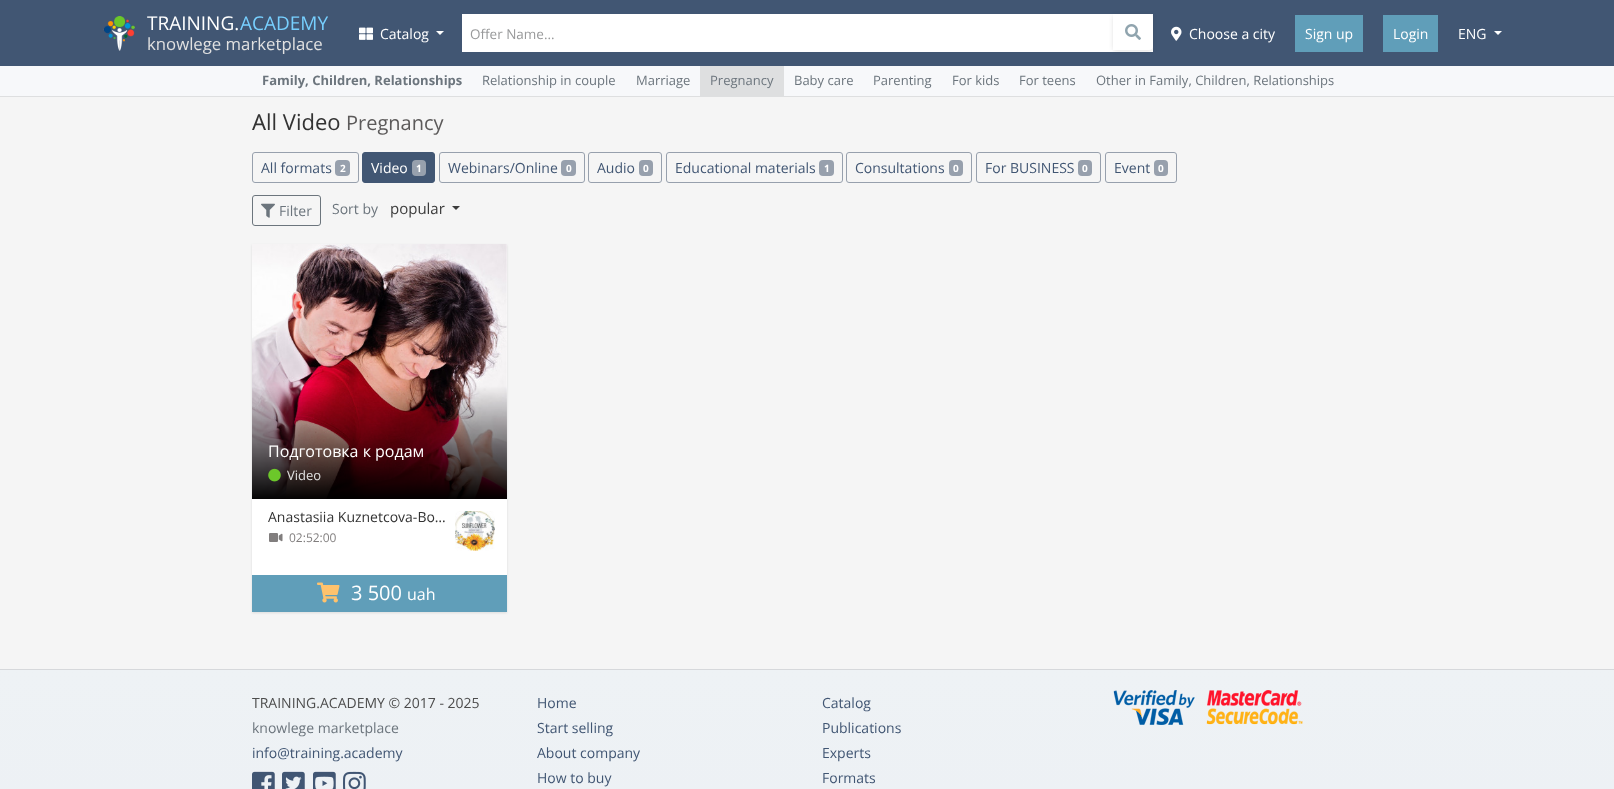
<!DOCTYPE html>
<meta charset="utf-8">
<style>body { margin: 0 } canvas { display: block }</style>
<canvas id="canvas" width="1614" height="789"></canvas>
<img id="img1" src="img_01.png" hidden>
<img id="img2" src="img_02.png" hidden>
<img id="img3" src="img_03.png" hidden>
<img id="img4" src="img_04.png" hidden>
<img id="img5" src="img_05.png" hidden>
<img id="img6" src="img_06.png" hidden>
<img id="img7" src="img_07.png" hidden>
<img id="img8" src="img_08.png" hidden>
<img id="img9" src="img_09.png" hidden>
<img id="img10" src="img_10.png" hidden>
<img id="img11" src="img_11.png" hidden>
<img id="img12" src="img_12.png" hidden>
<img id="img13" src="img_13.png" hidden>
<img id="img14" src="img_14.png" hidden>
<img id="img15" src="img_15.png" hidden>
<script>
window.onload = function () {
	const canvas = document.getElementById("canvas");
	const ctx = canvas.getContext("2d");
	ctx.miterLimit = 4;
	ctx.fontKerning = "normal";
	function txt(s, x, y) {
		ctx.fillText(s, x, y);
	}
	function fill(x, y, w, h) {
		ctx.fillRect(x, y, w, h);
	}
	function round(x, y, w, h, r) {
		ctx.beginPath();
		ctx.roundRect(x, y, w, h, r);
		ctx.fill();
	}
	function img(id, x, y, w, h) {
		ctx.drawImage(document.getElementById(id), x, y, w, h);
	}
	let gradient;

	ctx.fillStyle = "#F5F5F5";
	fill(0, 0, 1614, 789);
	ctx.fillStyle = "#415673";
	fill(0, 0, 1614, 66);
	img("img1", 103, 16, 32, 35);
	img("img2", 359, 27, 14, 13);
	ctx.fillStyle = "#FFFFFF";
	ctx.beginPath();
	ctx.moveTo(436, 31);
	ctx.lineTo(444, 31);
	ctx.lineTo(440, 35);
	ctx.closePath();
	ctx.fill();
	fill(462, 14, 691, 38);
	ctx.fillStyle = "rgba(51, 51, 51, 0.15)";
	ctx.filter = "blur(2px)";
	ctx.beginPath();
	ctx.roundRect(1113, 15, 40, 36, 4);
	ctx.fill();
	ctx.filter = "none";
	ctx.fillStyle = "#FFFFFF";
	ctx.beginPath();
	ctx.roundRect(1113, 14, 40, 36, [0, 4, 4, 0]);
	ctx.fill();
	img("img3", 1125, 24, 16, 16);
	img("img4", 1171, 26, 11, 15);
	ctx.fillStyle = "#609EB9";
	fill(1295, 15, 68, 37);
	fill(1383, 15, 55, 37);
	ctx.fillStyle = "#FFFFFF";
	ctx.beginPath();
	ctx.moveTo(1494, 31);
	ctx.lineTo(1502, 31);
	ctx.lineTo(1498, 35);
	ctx.closePath();
	ctx.fill();
	ctx.fillStyle = "#F7F8FA";
	fill(0, 66, 1614, 30);
	ctx.fillStyle = "#DEDFE0";
	fill(0, 96, 1614, 1);
	fill(700, 66, 84, 30);
	ctx.beginPath();
	ctx.roundRect(252.5, 152.5, 106, 30, 2.5);
	ctx.strokeStyle = "#97A0AD";
	ctx.stroke();
	ctx.fillStyle = "#97A0AD";
	round(335, 160, 15, 16, 4);
	ctx.fillStyle = "#415673";
	ctx.beginPath();
	ctx.roundRect(362.5, 152.5, 72, 30, 2.5);
	ctx.fill();
	ctx.strokeStyle = "#415673";
	ctx.stroke();
	ctx.fillStyle = "#97A0AD";
	round(412, 160, 14, 16, 4);
	ctx.beginPath();
	ctx.roundRect(439.5, 152.5, 145, 30, 2.5);
	ctx.strokeStyle = "#97A0AD";
	ctx.stroke();
	round(561, 160, 15, 16, 4);
	ctx.beginPath();
	ctx.roundRect(588.5, 152.5, 73, 30, 2.5);
	ctx.stroke();
	round(639, 160, 14, 16, 4);
	ctx.beginPath();
	ctx.roundRect(666.5, 152.5, 176, 30, 2.5);
	ctx.stroke();
	round(819, 160, 15, 16, 4);
	ctx.beginPath();
	ctx.roundRect(846.5, 152.5, 125, 30, 2.5);
	ctx.stroke();
	round(949, 160, 14, 16, 4);
	ctx.beginPath();
	ctx.roundRect(976.5, 152.5, 124, 30, 2.5);
	ctx.stroke();
	round(1078, 160, 14, 16, 4);
	ctx.beginPath();
	ctx.roundRect(1105.5, 152.5, 71, 30, 2.5);
	ctx.stroke();
	round(1154, 160, 14, 16, 4);
	ctx.beginPath();
	ctx.roundRect(252.5, 195.5, 68, 30, 2.5);
	ctx.strokeStyle = "#6C757D";
	ctx.stroke();
	img("img5", 261, 203, 14, 15);
	ctx.fillStyle = "#3C3C3C";
	ctx.beginPath();
	ctx.moveTo(452, 206);
	ctx.lineTo(460, 206);
	ctx.lineTo(456, 210);
	ctx.closePath();
	ctx.fill();
	ctx.fillStyle = "rgba(5, 5, 6, 0.1)";
	ctx.filter = "blur(1px)";
	ctx.beginPath();
	ctx.rect(252, 245, 255, 368);
	ctx.fill();
	ctx.filter = "none";
	img("img6", 252, 244, 255, 255);
	img("img7", 268, 468, 13, 14);
	ctx.fillStyle = "#FFFFFF";
	fill(252, 499, 255, 76);
	img("img8", 269, 533, 14, 9);
	img("img9", 455, 511, 40, 40);
	ctx.fillStyle = "#609EB9";
	fill(252, 575, 255, 37);
	img("img10", 317, 582, 23, 21);
	gradient = ctx.createLinearGradient(807, 670, 807, 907);
	gradient.addColorStop(0, "#EEF2F5");
	gradient.addColorStop(1, "#ECF0F4");
	ctx.fillStyle = gradient;
	fill(0, 670, 1614, 119);
	ctx.fillStyle = "#D6D8DB";
	fill(0, 669, 1614, 1);
	img("img11", 252, 771, 23, 18);
	img("img12", 282, 771, 23, 18);
	img("img13", 313, 771, 23, 18);
	img("img14", 343, 771, 23, 18);
	img("img15", 1113, 690, 190, 35);
	ctx.font = "19px Open Sans";
	ctx.fillStyle = "#FFFFFF";
	txt("TRAINING.", 147, 30);
	ctx.fillStyle = "#77CFFE";
	txt("ACADEMY", 240, 30);
	ctx.font = "16.75px Open Sans";
	ctx.fillStyle = "#E1E1E1";
	txt("knowlege marketplace", 147, 50);
	ctx.font = "14px Open Sans";
	ctx.fillStyle = "#FFFFFF";
	txt("Catalog", 380, 39);
	ctx.font = "13.5px Open Sans";
	ctx.fillStyle = "#999A9B";
	txt("Offer Name...", 470, 39);
	ctx.font = "14px Open Sans";
	ctx.fillStyle = "#FFFFFF";
	txt("Choose a city", 1189, 39);
	txt("Sign up", 1305, 39);
	txt("Login", 1393, 39);
	txt("ENG", 1458, 39);
	ctx.font = "bold 13px Open Sans";
	ctx.fillStyle = "#6C757D";
	txt("Family, Children, Relationships", 262, 85);
	ctx.font = "13px Open Sans";
	txt("Relationship in couple", 482, 85);
	txt("Marriage", 636, 85);
	txt("Pregnancy", 710, 85);
	txt("Baby care", 794, 85);
	txt("Parenting", 873, 85);
	txt("For kids", 952, 85);
	txt("For teens", 1019, 85);
	txt("Other in Family, Children, Relationships", 1096, 85);
	ctx.font = "22px Noto Sans";
	ctx.fillStyle = "#333333";
	txt("A", 252, 130);
	ctx.font = "22px Open Sans";
	txt("ll Video", 266, 130);
	ctx.font = "20px Open Sans";
	ctx.fillStyle = "#5C5A5A";
	txt("Pregnancy", 346, 130);
	ctx.font = "14px Open Sans";
	ctx.fillStyle = "#415673";
	txt("All formats", 261, 173);
	ctx.font = "bold 10px Open Sans";
	ctx.fillStyle = "#FFFFFF";
	txt("2", 340, 172);
	ctx.font = "14px Open Sans";
	txt("Video", 371, 173);
	ctx.font = "bold 10px Open Sans";
	txt("1", 416, 172);
	ctx.font = "14px Open Sans";
	ctx.fillStyle = "#415673";
	txt("Webinars/Online", 448, 173);
	ctx.font = "bold 10px Open Sans";
	ctx.fillStyle = "#FFFFFF";
	txt("0", 566, 172);
	ctx.font = "14px Open Sans";
	ctx.fillStyle = "#415673";
	txt("Audio", 597, 173);
	ctx.font = "bold 10px Open Sans";
	ctx.fillStyle = "#FFFFFF";
	txt("0", 643, 172);
	ctx.font = "14px Open Sans";
	ctx.fillStyle = "#415673";
	txt("Educational materials", 675, 173);
	ctx.font = "bold 10px Open Sans";
	ctx.fillStyle = "#FFFFFF";
	txt("1", 824, 172);
	ctx.font = "14px Open Sans";
	ctx.fillStyle = "#415673";
	txt("Consultations", 855, 173);
	ctx.font = "bold 10px Open Sans";
	ctx.fillStyle = "#FFFFFF";
	txt("0", 953, 172);
	ctx.font = "14px Open Sans";
	ctx.fillStyle = "#415673";
	txt("For BUSINESS", 985, 173);
	ctx.font = "bold 10px Open Sans";
	ctx.fillStyle = "#FFFFFF";
	txt("0", 1082, 172);
	ctx.font = "14px Open Sans";
	ctx.fillStyle = "#415673";
	txt("Event", 1114, 173);
	ctx.font = "bold 10px Open Sans";
	ctx.fillStyle = "#FFFFFF";
	txt("0", 1158, 172);
	ctx.font = "14px Open Sans";
	ctx.fillStyle = "#6C757D";
	txt("Filter", 279, 216);
	txt("Sort by", 332, 214);
	ctx.font = "15px Open Sans";
	ctx.fillStyle = "#3C3C3C";
	txt("popular", 390, 214);
	ctx.font = "16px Open Sans";
	ctx.fillStyle = "#FFFFFF";
	txt("Подготовка к родам", 268, 457);
	ctx.font = "13px Open Sans";
	ctx.fillStyle = "#E1E1E1";
	txt("Video", 287, 480);
	ctx.font = "14px Open Sans";
	ctx.fillStyle = "#333333";
	txt("Anastasiia Kuznetcova-Bo…", 268, 522);
	ctx.font = "12px Open Sans";
	ctx.fillStyle = "#817E7E";
	txt("02:52:00", 289, 542);
	ctx.font = "20px Open Sans";
	ctx.fillStyle = "#FFFFFF";
	txt("3 500", 351, 600);
	ctx.font = "16px Open Sans";
	txt("uah", 407, 600);
	ctx.font = "14px Open Sans";
	ctx.fillStyle = "#4D4D4D";
	txt("TRAINING.ACADEMY © 2017 - 2025", 252, 708);
	ctx.fillStyle = "#6C757D";
	txt("knowlege marketplace", 252, 733);
	ctx.fillStyle = "#415673";
	txt("info@training.academy", 252, 758);
	txt("Home", 537, 708);
	txt("Start selling", 537, 733);
	txt("About company", 537, 758);
	txt("How to buy", 537, 783);
	txt("Catalog", 822, 708);
	txt("Publications", 822, 733);
	txt("Experts", 822, 758);
	txt("Formats", 822, 783);
};
</script>
